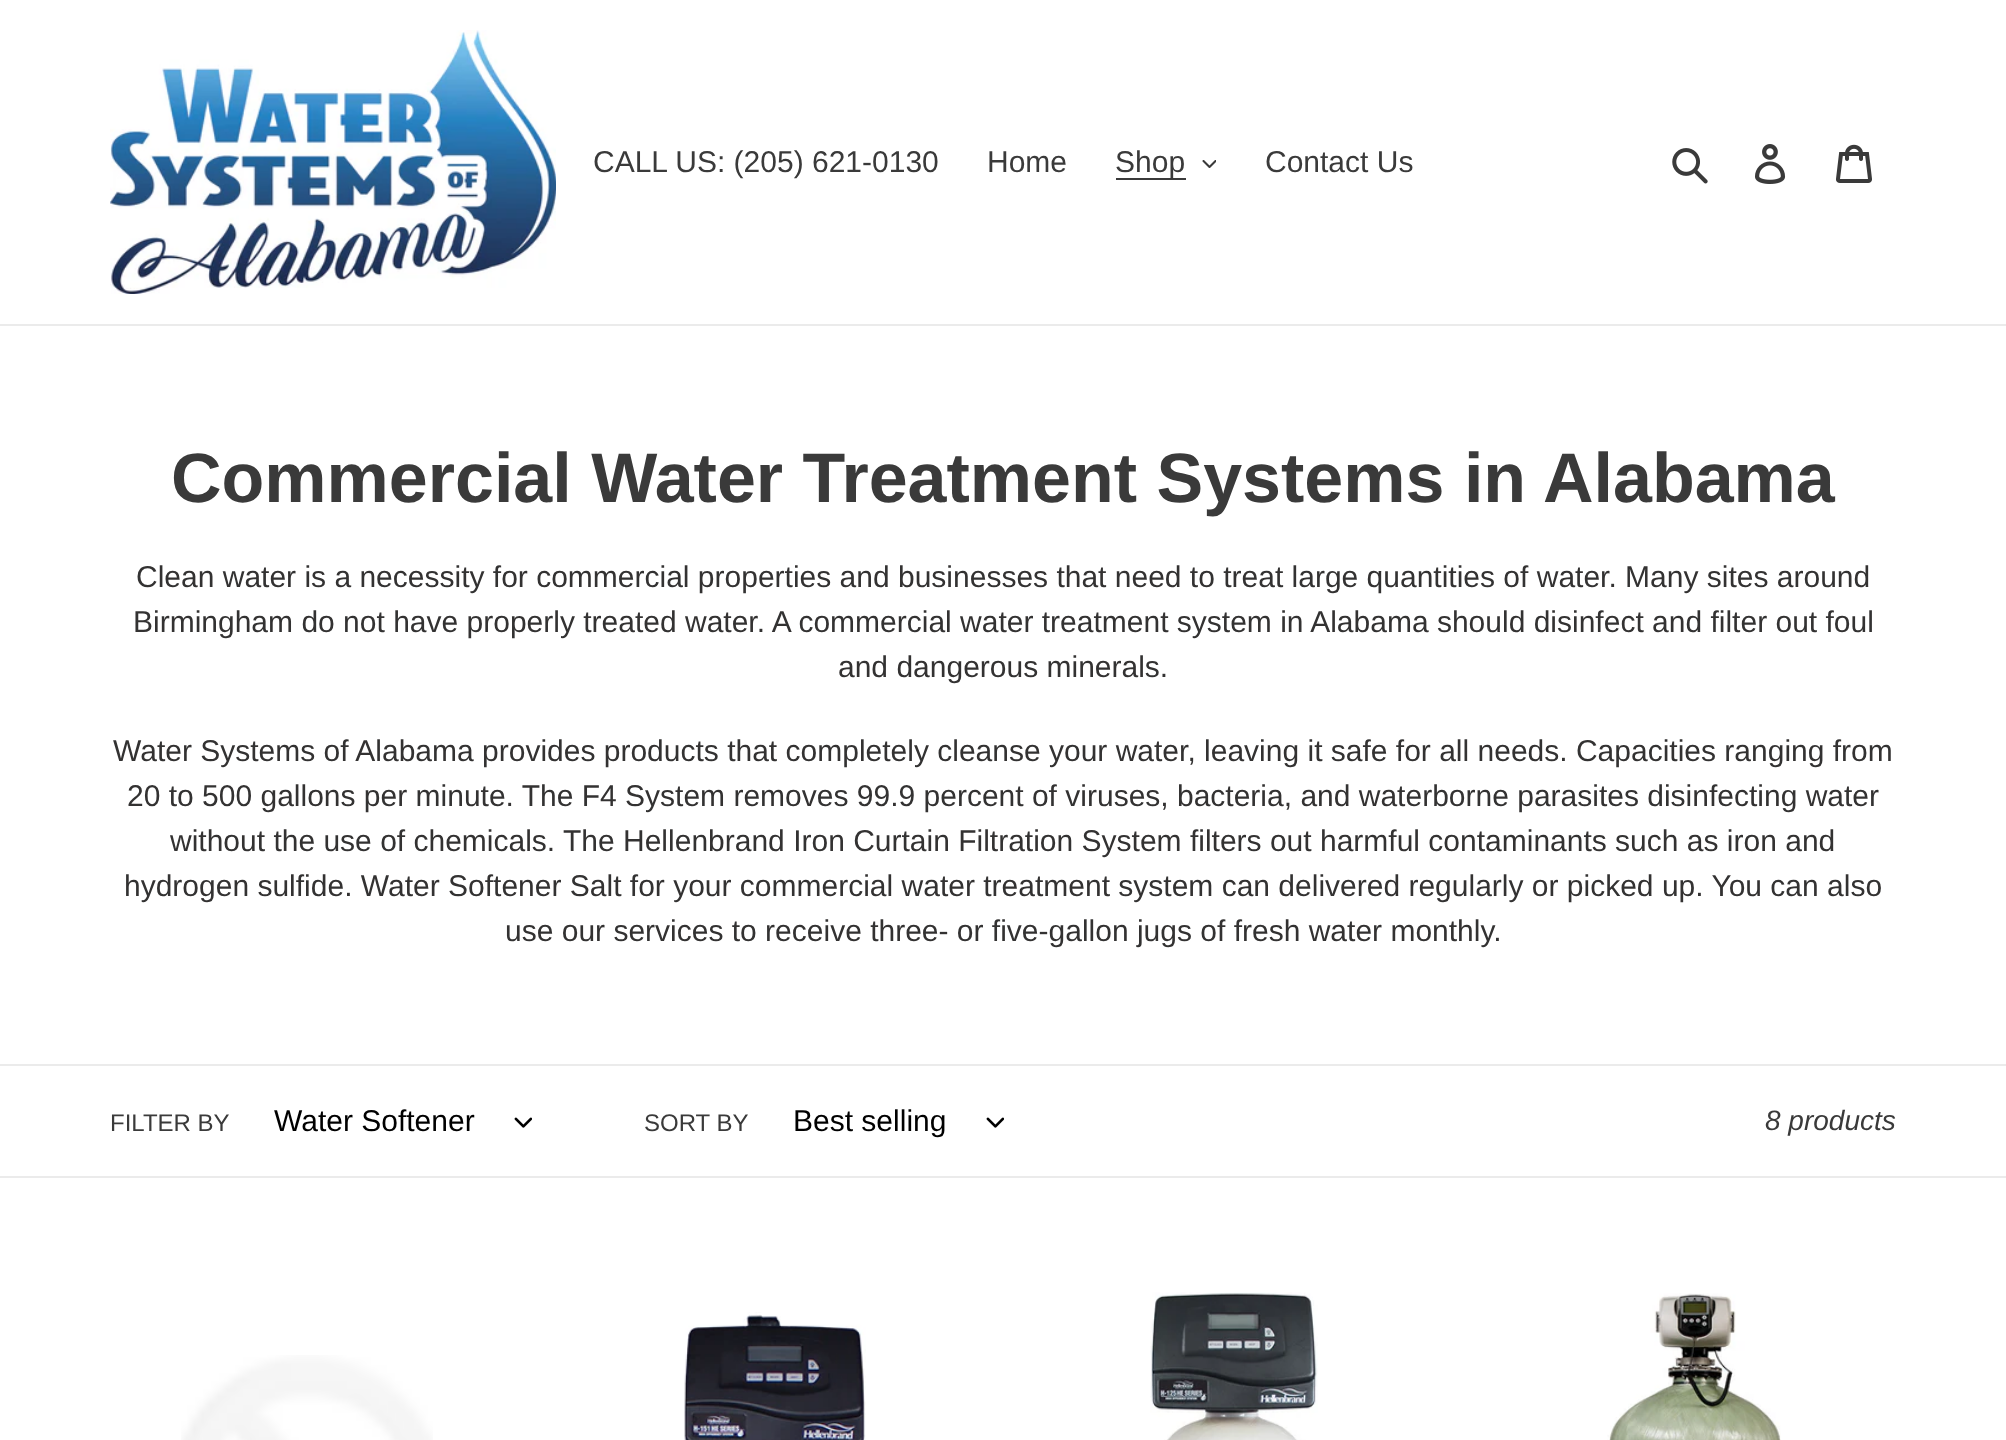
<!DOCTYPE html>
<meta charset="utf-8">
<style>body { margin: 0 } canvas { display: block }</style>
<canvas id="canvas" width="2006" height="1440"></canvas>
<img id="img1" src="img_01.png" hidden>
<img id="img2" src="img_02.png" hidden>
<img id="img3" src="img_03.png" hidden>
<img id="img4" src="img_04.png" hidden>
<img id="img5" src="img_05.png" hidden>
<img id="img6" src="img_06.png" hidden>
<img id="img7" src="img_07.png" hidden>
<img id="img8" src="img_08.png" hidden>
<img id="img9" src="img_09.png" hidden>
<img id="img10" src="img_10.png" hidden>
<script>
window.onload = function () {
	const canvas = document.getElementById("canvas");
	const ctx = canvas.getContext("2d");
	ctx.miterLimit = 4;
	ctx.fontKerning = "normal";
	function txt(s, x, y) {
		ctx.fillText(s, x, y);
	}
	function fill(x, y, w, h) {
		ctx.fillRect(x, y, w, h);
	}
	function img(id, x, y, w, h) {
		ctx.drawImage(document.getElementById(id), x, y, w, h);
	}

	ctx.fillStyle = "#FFFFFF";
	fill(0, 0, 2006, 1440);
	ctx.fillStyle = "#EBEBEB";
	fill(0, 324, 2006, 2);
	img("img1", 110, 30, 446, 264);
	ctx.fillStyle = "#3A3A3A";
	fill(1116, 178, 70, 2);
	img("img2", 1202, 160, 14, 8);
	img("img3", 1672, 148, 36, 36);
	img("img4", 1755, 144, 31, 40);
	img("img5", 1836, 144, 36, 39);
	ctx.fillStyle = "#EBEBEB";
	fill(0, 1064, 2006, 2);
	fill(0, 1176, 2006, 2);
	img("img6", 514, 1117, 18, 11);
	img("img6", 986, 1117, 18, 11);
	img("img7", 181, 1355, 252, 85);
	img("img8", 684, 1312, 182, 128);
	img("img9", 1150, 1292, 168, 148);
	img("img10", 1607, 1293, 174, 147);
	ctx.font = "30px Liberation Sans";
	ctx.fillStyle = "#3A3A3A";
	txt("CALL US: (205) 621-0130", 593, 172);
	txt("Home", 987, 172);
	txt("Shop", 1115, 172);
	txt("Contact Us", 1265, 172);
	ctx.font = "bold 70px Liberation Sans";
	txt("Commercial Water Treatment Systems in Alabama", 171, 502);
	ctx.font = "30px Liberation Sans";
	ctx.fillStyle = "#333232";
	txt("Clean water is a necessity for commercial properties and businesses that need to treat large quantities of water. Many sites around", 136, 587);
	txt("Birmingham do not have properly treated water. A commercial water treatment system in Alabama should disinfect and filter out foul", 133, 632);
	txt("and dangerous minerals.", 838, 677);
	txt("Water Systems of Alabama provides products that completely cleanse your water, leaving it safe for all needs. Capacities ranging from", 113, 761);
	txt("20 to 500 gallons per minute. The F4 System removes 99.9 percent of viruses, bacteria, and waterborne parasites disinfecting water", 127, 806);
	txt("without the use of chemicals. The Hellenbrand Iron Curtain Filtration System filters out harmful contaminants such as iron and", 170, 851);
	txt("hydrogen sulfide. Water Softener Salt for your commercial water treatment system can delivered regularly or picked up. You can also", 124, 896);
	txt("use our services to receive three- or five-gallon jugs of fresh water monthly.", 505, 941);
	ctx.font = "24px Liberation Sans";
	ctx.fillStyle = "#3A3A3A";
	txt("FILTER BY", 110, 1131);
	ctx.font = "30px Liberation Sans";
	ctx.fillStyle = "#000000";
	txt("Water Softener", 274, 1131);
	ctx.font = "24px Liberation Sans";
	ctx.fillStyle = "#3A3A3A";
	txt("SORT BY", 644, 1131);
	ctx.font = "30px Liberation Sans";
	ctx.fillStyle = "#000000";
	txt("Best selling", 793, 1131);
	ctx.font = "italic 28px Liberation Sans";
	ctx.fillStyle = "#3A3A3A";
	txt("8 products", 1765, 1130);
};
</script>
